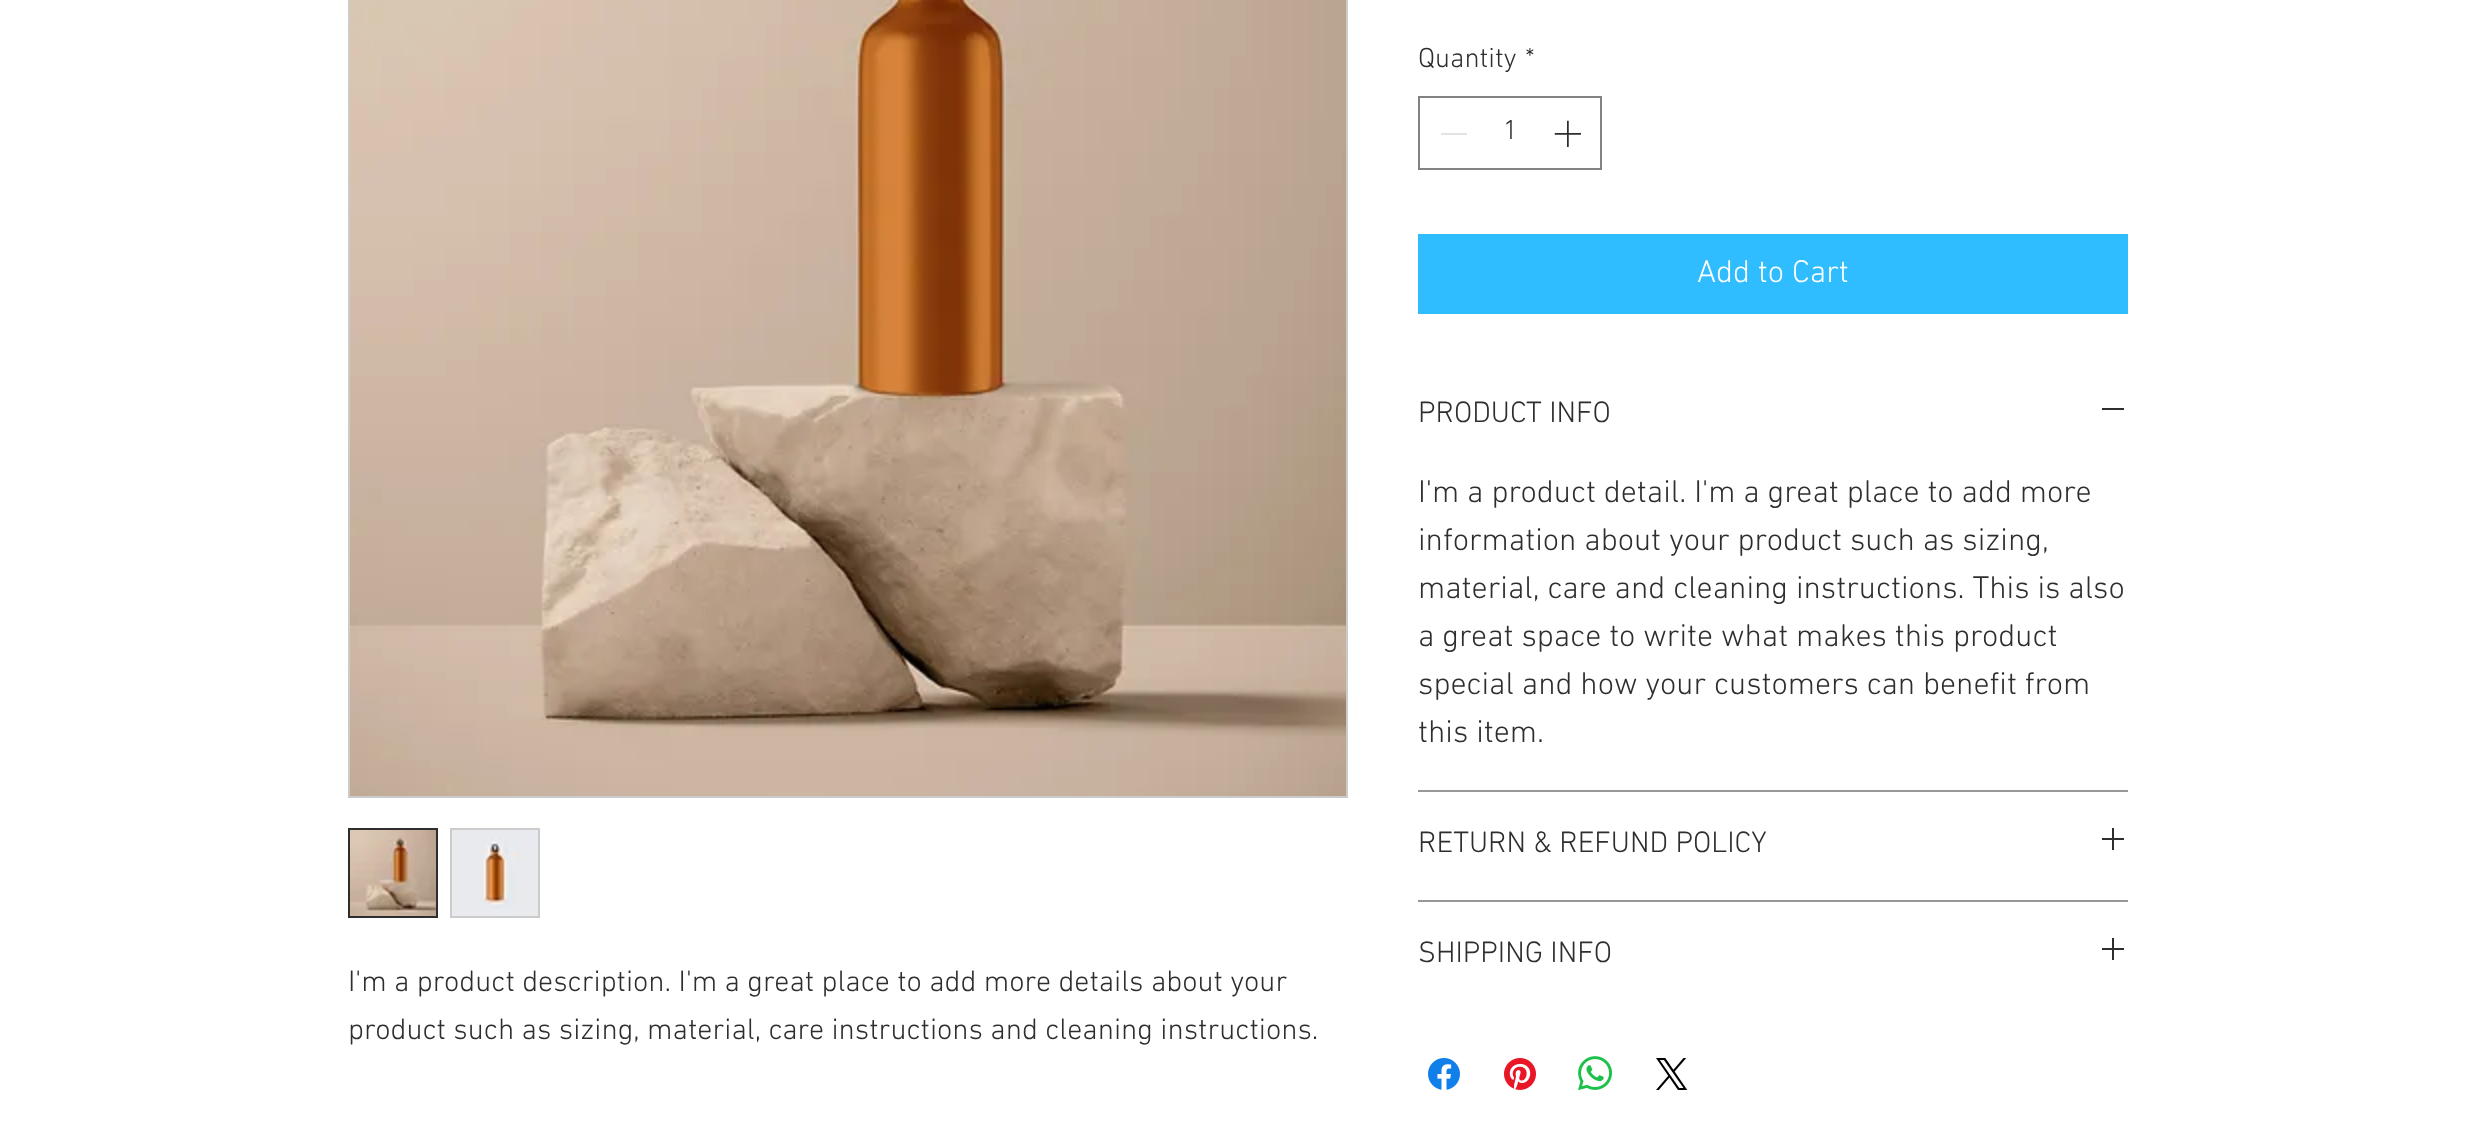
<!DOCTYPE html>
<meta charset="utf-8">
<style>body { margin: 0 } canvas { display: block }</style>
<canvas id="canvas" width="2475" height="1121"></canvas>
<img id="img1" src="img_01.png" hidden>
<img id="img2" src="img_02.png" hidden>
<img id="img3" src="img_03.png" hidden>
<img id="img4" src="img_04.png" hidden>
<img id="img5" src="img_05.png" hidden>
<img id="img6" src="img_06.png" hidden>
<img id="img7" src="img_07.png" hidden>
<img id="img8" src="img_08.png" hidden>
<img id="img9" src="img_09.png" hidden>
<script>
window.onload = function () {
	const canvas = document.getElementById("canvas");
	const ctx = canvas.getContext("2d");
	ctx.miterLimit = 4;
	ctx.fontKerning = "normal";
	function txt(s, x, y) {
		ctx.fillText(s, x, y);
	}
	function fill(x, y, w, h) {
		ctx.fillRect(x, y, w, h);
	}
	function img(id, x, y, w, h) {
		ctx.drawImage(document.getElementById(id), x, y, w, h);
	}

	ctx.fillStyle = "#FFFFFF";
	fill(0, 0, 2475, 1121);
	ctx.strokeStyle = "#828282";
	ctx.lineWidth = 2;
	ctx.strokeRect(1419, 97, 182, 72);
	ctx.fillStyle = "#E3E3E3";
	fill(1441, 133, 26, 2);
	img("img1", 1554, 120, 27, 27);
	ctx.fillStyle = "#30BDFF";
	fill(1418, 234, 710, 80);
	ctx.fillStyle = "#979797";
	fill(1418, 790, 710, 2);
	ctx.fillStyle = "#2F2E2E";
	fill(2102, 408, 22, 2);
	ctx.fillStyle = "#979797";
	fill(1418, 900, 710, 2);
	img("img2", 2102, 828, 22, 22);
	img("img2", 2102, 938, 22, 22);
	img("img3", 1428, 1058, 32, 32);
	img("img4", 1504, 1058, 32, 32);
	img("img5", 1578, 1056, 34, 35);
	img("img6", 1656, 1058, 32, 32);
	ctx.strokeStyle = "#CBCBCB";
	ctx.strokeRect(349, -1, 998, 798);
	img("img7", 350, 0, 996, 796);
	ctx.strokeStyle = "#2F2E2E";
	ctx.strokeRect(349, 829, 88, 88);
	img("img8", 350, 830, 86, 86);
	ctx.fillStyle = "#CBCBCB";
	fill(450, 828, 90, 90);
	img("img9", 452, 830, 86, 86);
	ctx.font = "300 28px 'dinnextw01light'";
	ctx.fillStyle = "#2F2E2E";
	txt("Quantity", 1418, 67);
	txt("*", 1525, 67);
	txt("1", 1503, 139);
	ctx.font = "300 32px 'dinnextw01light'";
	ctx.fillStyle = "#FFFFFF";
	txt("Add to Cart", 1697, 282);
	ctx.font = "300 30px 'dinnextw01light'";
	ctx.fillStyle = "#2F2E2E";
	txt("PRODUCT INFO", 1418, 422);
	ctx.font = "300 32px 'dinnextw01light'";
	txt("I'm a product detail. I'm a great place to add more", 1418, 502);
	txt("information about your product such as sizing,", 1418, 550);
	txt("material, care and cleaning instructions. This is also", 1418, 598);
	txt("a great space to write what makes this product", 1418, 646);
	txt("special and how your customers can benefit from", 1418, 694);
	txt("this item.", 1418, 742);
	ctx.font = "300 30px 'dinnextw01light'";
	txt("RETURN & REFUND POLICY", 1418, 852);
	txt("SHIPPING INFO", 1418, 962);
	txt("I'm a product description. I'm a great place to add more details about your", 348, 991);
	txt("product such as sizing, material, care instructions and cleaning instructions.", 348, 1039);
};
</script>
